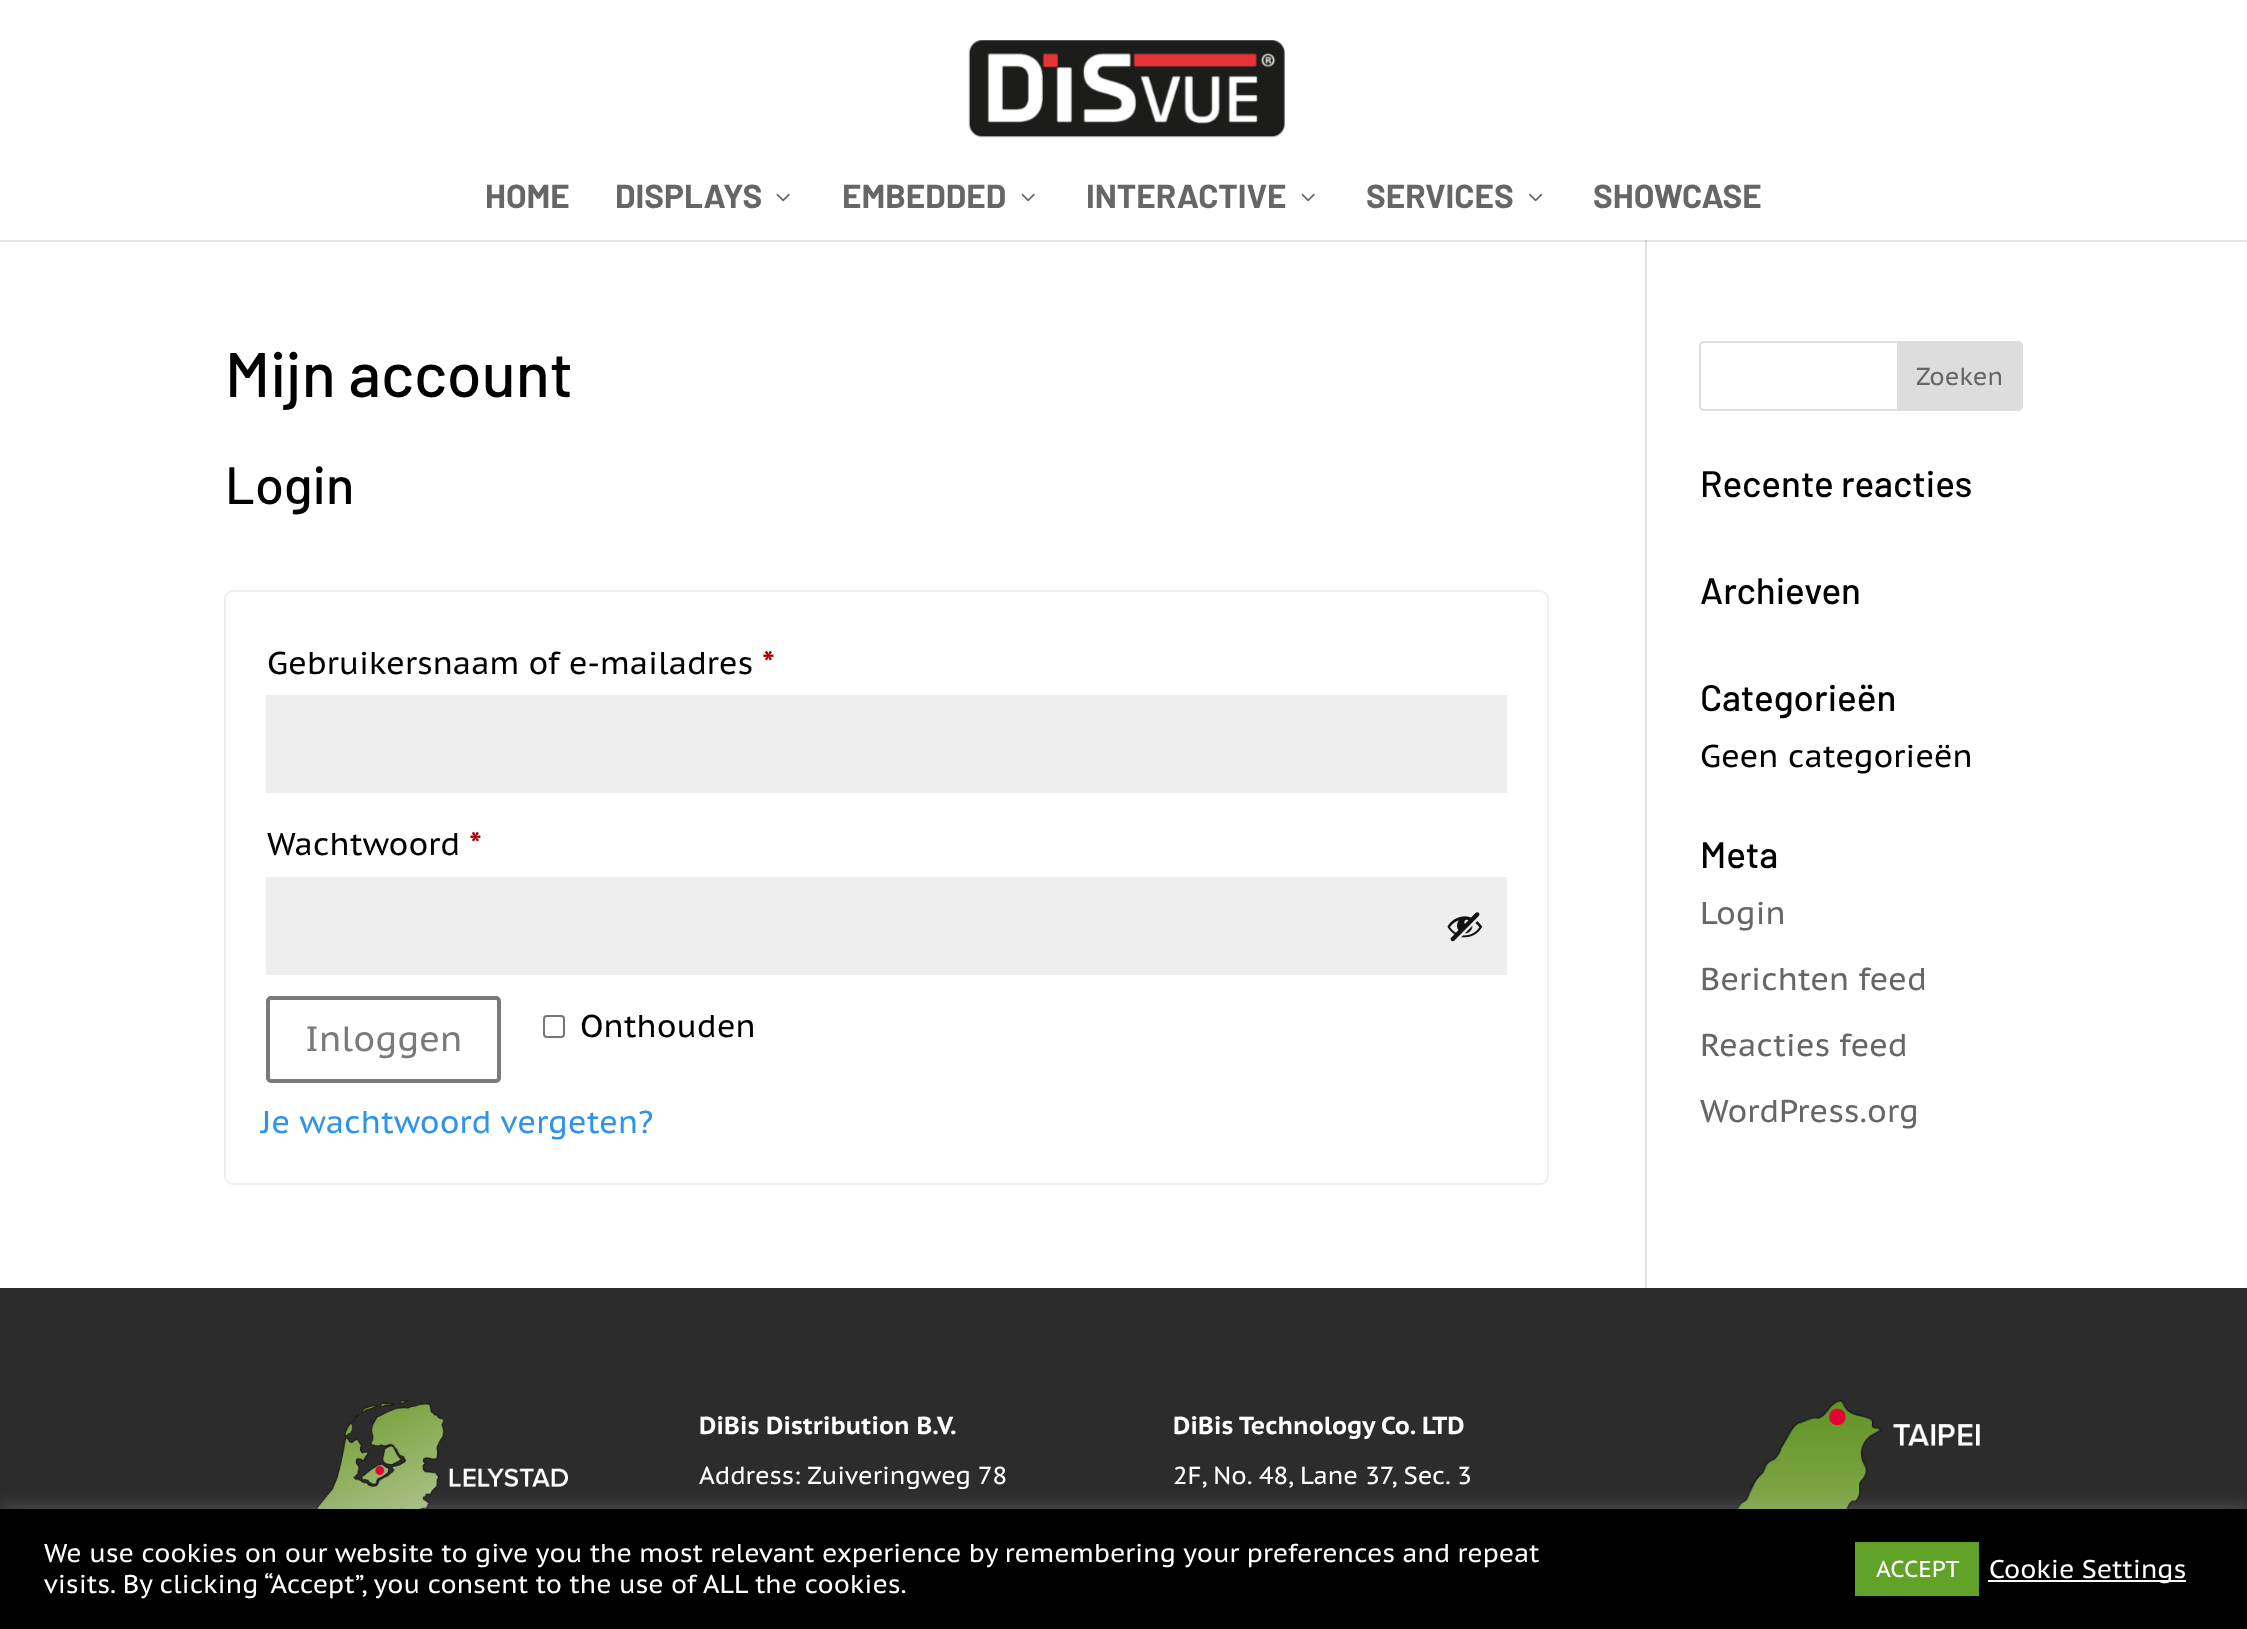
<!DOCTYPE html>
<meta charset="utf-8">
<style>body { margin: 0 } canvas { display: block }</style>
<canvas id="canvas" width="2247" height="1629"></canvas>
<img id="img1" src="img_01.png" hidden>
<img id="img2" src="img_02.png" hidden>
<img id="img3" src="img_03.png" hidden>
<img id="img4" src="img_04.png" hidden>
<img id="img5" src="img_05.png" hidden>
<img id="img6" src="img_06.png" hidden>
<script>
window.onload = function () {
	const canvas = document.getElementById("canvas");
	const ctx = canvas.getContext("2d");
	ctx.miterLimit = 4;
	ctx.fontKerning = "normal";
	function txt(s, x, y) {
		ctx.fillText(s, x, y);
	}
	function fill(x, y, w, h) {
		ctx.fillRect(x, y, w, h);
	}
	function img(id, x, y, w, h) {
		ctx.drawImage(document.getElementById(id), x, y, w, h);
	}

	ctx.fillStyle = "#FFFFFF";
	fill(0, 0, 2247, 1629);
	ctx.fillStyle = "#E6E6E6";
	fill(0, 240, 2247, 2);
	img("img1", 968, 40, 317, 98);
	img("img2", 776, 193, 14, 9);
	img("img2", 1021, 193, 14, 9);
	img("img2", 1301, 193, 14, 9);
	img("img3", 1529, 193, 14, 9);
	ctx.fillStyle = "#E2E2E2";
	fill(1645, 240, 2, 1048);
	ctx.fillStyle = "#CBCBCB";
	fill(1645, 240, 2, 2);
	ctx.beginPath();
	ctx.roundRect(225, 591, 1323, 593, 8);
	ctx.strokeStyle = "#EEEEEE";
	ctx.lineWidth = 2;
	ctx.stroke();
	ctx.fillStyle = "#EEEEEE";
	fill(266, 695, 1241, 98);
	fill(266, 877, 1241, 98);
	img("img4", 1447, 912, 36, 30);
	ctx.beginPath();
	ctx.roundRect(268, 998, 231, 83, 3);
	ctx.strokeStyle = "#7A7A7A";
	ctx.lineWidth = 4;
	ctx.stroke();
	ctx.beginPath();
	ctx.roundRect(544, 1016, 20, 21, 3);
	ctx.strokeStyle = "#767676";
	ctx.lineWidth = 2;
	ctx.stroke();
	ctx.beginPath();
	ctx.roundRect(1700, 342, 322, 68, 4);
	ctx.strokeStyle = "#DDDDDD";
	ctx.stroke();
	ctx.fillStyle = "#DDDDDD";
	ctx.beginPath();
	ctx.roundRect(1898, 342, 124, 68, [0, 4, 4, 0]);
	ctx.fill();
	ctx.stroke();
	ctx.fillStyle = "#2C2C2C";
	fill(0, 1288, 2247, 221);
	img("img5", 315, 1400, 253, 109);
	img("img6", 1735, 1400, 245, 109);
	ctx.fillStyle = "rgba(172, 171, 171, 0.3)";
	ctx.filter = "blur(9px)";
	ctx.beginPath();
	ctx.rect(0, 1507, 2247, 121);
	ctx.fill();
	ctx.filter = "none";
	ctx.fillStyle = "#000000";
	fill(0, 1509, 2247, 120);
	ctx.fillStyle = "#61A229";
	fill(1855, 1542, 124, 54);
	ctx.fillStyle = "#FFFFFF";
	fill(1988, 1580, 198, 2);
	ctx.font = "bold 33.25px Barlow";
	ctx.fillStyle = "#666666";
	txt("HOME", 485, 208);
	txt("DISPLAYS", 615, 208);
	txt("EMBEDDED", 842, 208);
	txt("INTERACTIVE", 1086, 208);
	txt("SERVICES", 1366, 208);
	txt("SHOWCASE", 1593, 208);
	ctx.font = "500 63px Barlow";
	ctx.fillStyle = "#000000";
	txt("Mijn account", 225, 397);
	ctx.font = "500 52.5px Barlow";
	txt("Login", 225, 504);
	ctx.font = "31.5px PT Sans Caption";
	txt("Gebruikersnaam of e-mailadres", 267, 674);
	ctx.font = "bold 31.5px PT Sans Caption";
	ctx.fillStyle = "#AA0000";
	txt("*", 762, 674);
	ctx.font = "31.5px PT Sans Caption";
	ctx.fillStyle = "#000000";
	txt("Wachtwoord", 267, 855);
	ctx.font = "bold 31.5px PT Sans Caption";
	ctx.fillStyle = "#AA0000";
	txt("*", 469, 855);
	ctx.font = "35px PT Sans Caption";
	ctx.fillStyle = "#7A7A7A";
	txt("Inloggen", 305, 1051);
	ctx.font = "31.5px PT Sans Caption";
	ctx.fillStyle = "#000000";
	txt("Onthouden", 580, 1037);
	ctx.fillStyle = "#2E93EA";
	txt("Je wachtwoord vergeten?", 261, 1133);
	ctx.font = "24.5px PT Sans Caption";
	ctx.fillStyle = "#666666";
	txt("Zoeken", 1916, 385);
	ctx.font = "500 36.75px Barlow";
	ctx.fillStyle = "#000000";
	txt("Recente reacties", 1700, 497);
	txt("Archieven", 1700, 604);
	txt("Categorieën", 1700, 711);
	ctx.font = "31.5px PT Sans Caption";
	txt("Geen categorieën", 1700, 767);
	ctx.font = "500 36.75px Barlow";
	txt("Meta", 1700, 868);
	ctx.font = "31.5px PT Sans Caption";
	ctx.fillStyle = "#666666";
	txt("Login", 1700, 924);
	txt("Berichten feed", 1700, 990);
	txt("Reacties feed", 1700, 1056);
	txt("WordPress.org", 1700, 1122);
	ctx.font = "bold 24.5px PT Sans Caption";
	ctx.fillStyle = "#FFFFFF";
	txt("DiBis Distribution B.V.", 699, 1434);
	ctx.font = "24.5px PT Sans Caption";
	txt("Address: Zuiveringweg 78", 699, 1484);
	ctx.font = "bold 24.5px PT Sans Caption";
	txt("DiBis Technology Co. LTD", 1173, 1434);
	ctx.font = "24.5px PT Sans Caption";
	txt("2F, No. 48, Lane 37, Sec. 3", 1173, 1484);
	ctx.font = "25.67px PT Sans Caption";
	txt("We use cookies on our website to give you the most relevant experience by remembering your preferences and repeat", 44, 1562);
	txt("visits. By clicking “Accept”, you consent to the use of ALL the cookies.", 44, 1593);
	ctx.font = "23px PT Sans Caption";
	txt("ACCEPT", 1876, 1577);
	ctx.font = "25.67px PT Sans Caption";
	txt("Cookie Settings", 1989, 1578);
};
</script>
